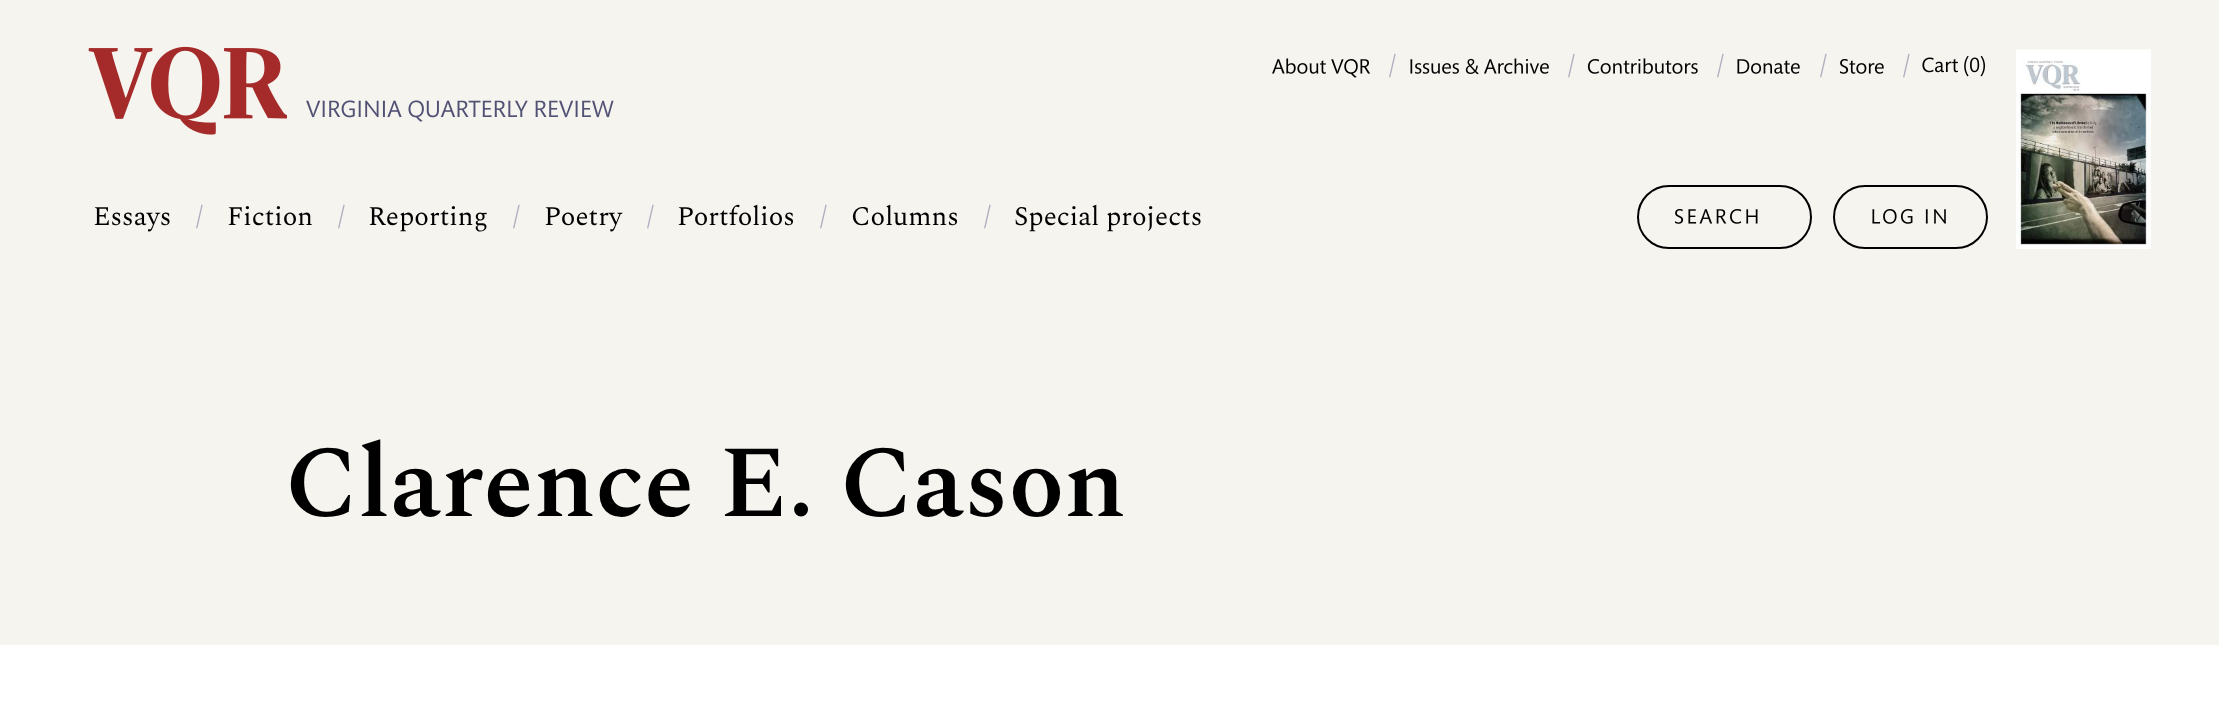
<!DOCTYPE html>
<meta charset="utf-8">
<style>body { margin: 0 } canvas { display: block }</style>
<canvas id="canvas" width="2219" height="721"></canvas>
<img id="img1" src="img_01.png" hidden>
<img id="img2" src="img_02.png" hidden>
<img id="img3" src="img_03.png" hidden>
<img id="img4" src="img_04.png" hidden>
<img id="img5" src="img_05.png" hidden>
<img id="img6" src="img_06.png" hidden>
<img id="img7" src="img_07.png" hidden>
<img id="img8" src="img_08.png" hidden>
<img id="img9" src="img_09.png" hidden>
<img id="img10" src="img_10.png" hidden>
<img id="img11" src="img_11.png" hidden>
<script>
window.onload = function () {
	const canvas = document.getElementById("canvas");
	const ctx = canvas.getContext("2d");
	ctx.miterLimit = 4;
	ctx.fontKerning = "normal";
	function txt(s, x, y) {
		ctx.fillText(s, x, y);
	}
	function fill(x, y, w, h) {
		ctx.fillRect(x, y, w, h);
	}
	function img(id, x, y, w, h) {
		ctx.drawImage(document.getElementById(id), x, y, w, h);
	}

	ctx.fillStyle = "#FFFFFF";
	fill(0, 0, 2219, 721);
	ctx.fillStyle = "#F6F4EF";
	fill(0, 0, 2219, 645);
	img("img1", 88, 46, 199, 89);
	img("img2", 306, 100, 308, 22);
	img("img3", 1272, 58, 98, 20);
	img("img4", 1410, 58, 139, 17);
	img("img5", 1587, 58, 111, 16);
	img("img6", 1737, 59, 63, 15);
	img("img7", 1839, 59, 45, 15);
	img("img8", 1922, 56, 63, 21);
	img("img9", 1674, 209, 84, 15);
	ctx.beginPath();
	ctx.roundRect(1638, 186, 173, 62, 31);
	ctx.strokeStyle = "#000000";
	ctx.lineWidth = 2;
	ctx.stroke();
	img("img10", 1872, 209, 74, 15);
	ctx.beginPath();
	ctx.roundRect(1834, 186, 153, 62, 31);
	ctx.stroke();
	img("img11", 2016, 49, 135, 200);
	ctx.font = "27px Spectral";
	ctx.fillStyle = "#AFAFBF";
	txt("/", 1389, 74);
	txt("/", 1568, 74);
	txt("/", 1717, 74);
	txt("/", 1820, 74);
	txt("/", 1903, 74);
	ctx.fillStyle = "#000000";
	txt("Essays", 93, 225);
	ctx.fillStyle = "#AFAFBF";
	txt("/", 196, 225);
	ctx.fillStyle = "#000000";
	txt("Fiction", 227, 225);
	ctx.fillStyle = "#AFAFBF";
	txt("/", 338, 225);
	ctx.fillStyle = "#000000";
	txt("Reporting", 368, 225);
	ctx.fillStyle = "#AFAFBF";
	txt("/", 513, 225);
	ctx.fillStyle = "#000000";
	txt("Poetry", 544, 225);
	ctx.fillStyle = "#AFAFBF";
	txt("/", 647, 225);
	ctx.fillStyle = "#000000";
	txt("Portfolios", 677, 225);
	ctx.fillStyle = "#AFAFBF";
	txt("/", 820, 225);
	ctx.fillStyle = "#000000";
	txt("Columns", 851, 225);
	ctx.fillStyle = "#AFAFBF";
	txt("/", 984, 225);
	ctx.fillStyle = "#000000";
	txt("Special projects", 1014, 225);
	ctx.font = "600 102px Spectral";
	txt("Clarence E. Cason", 285, 516);
};
</script>
